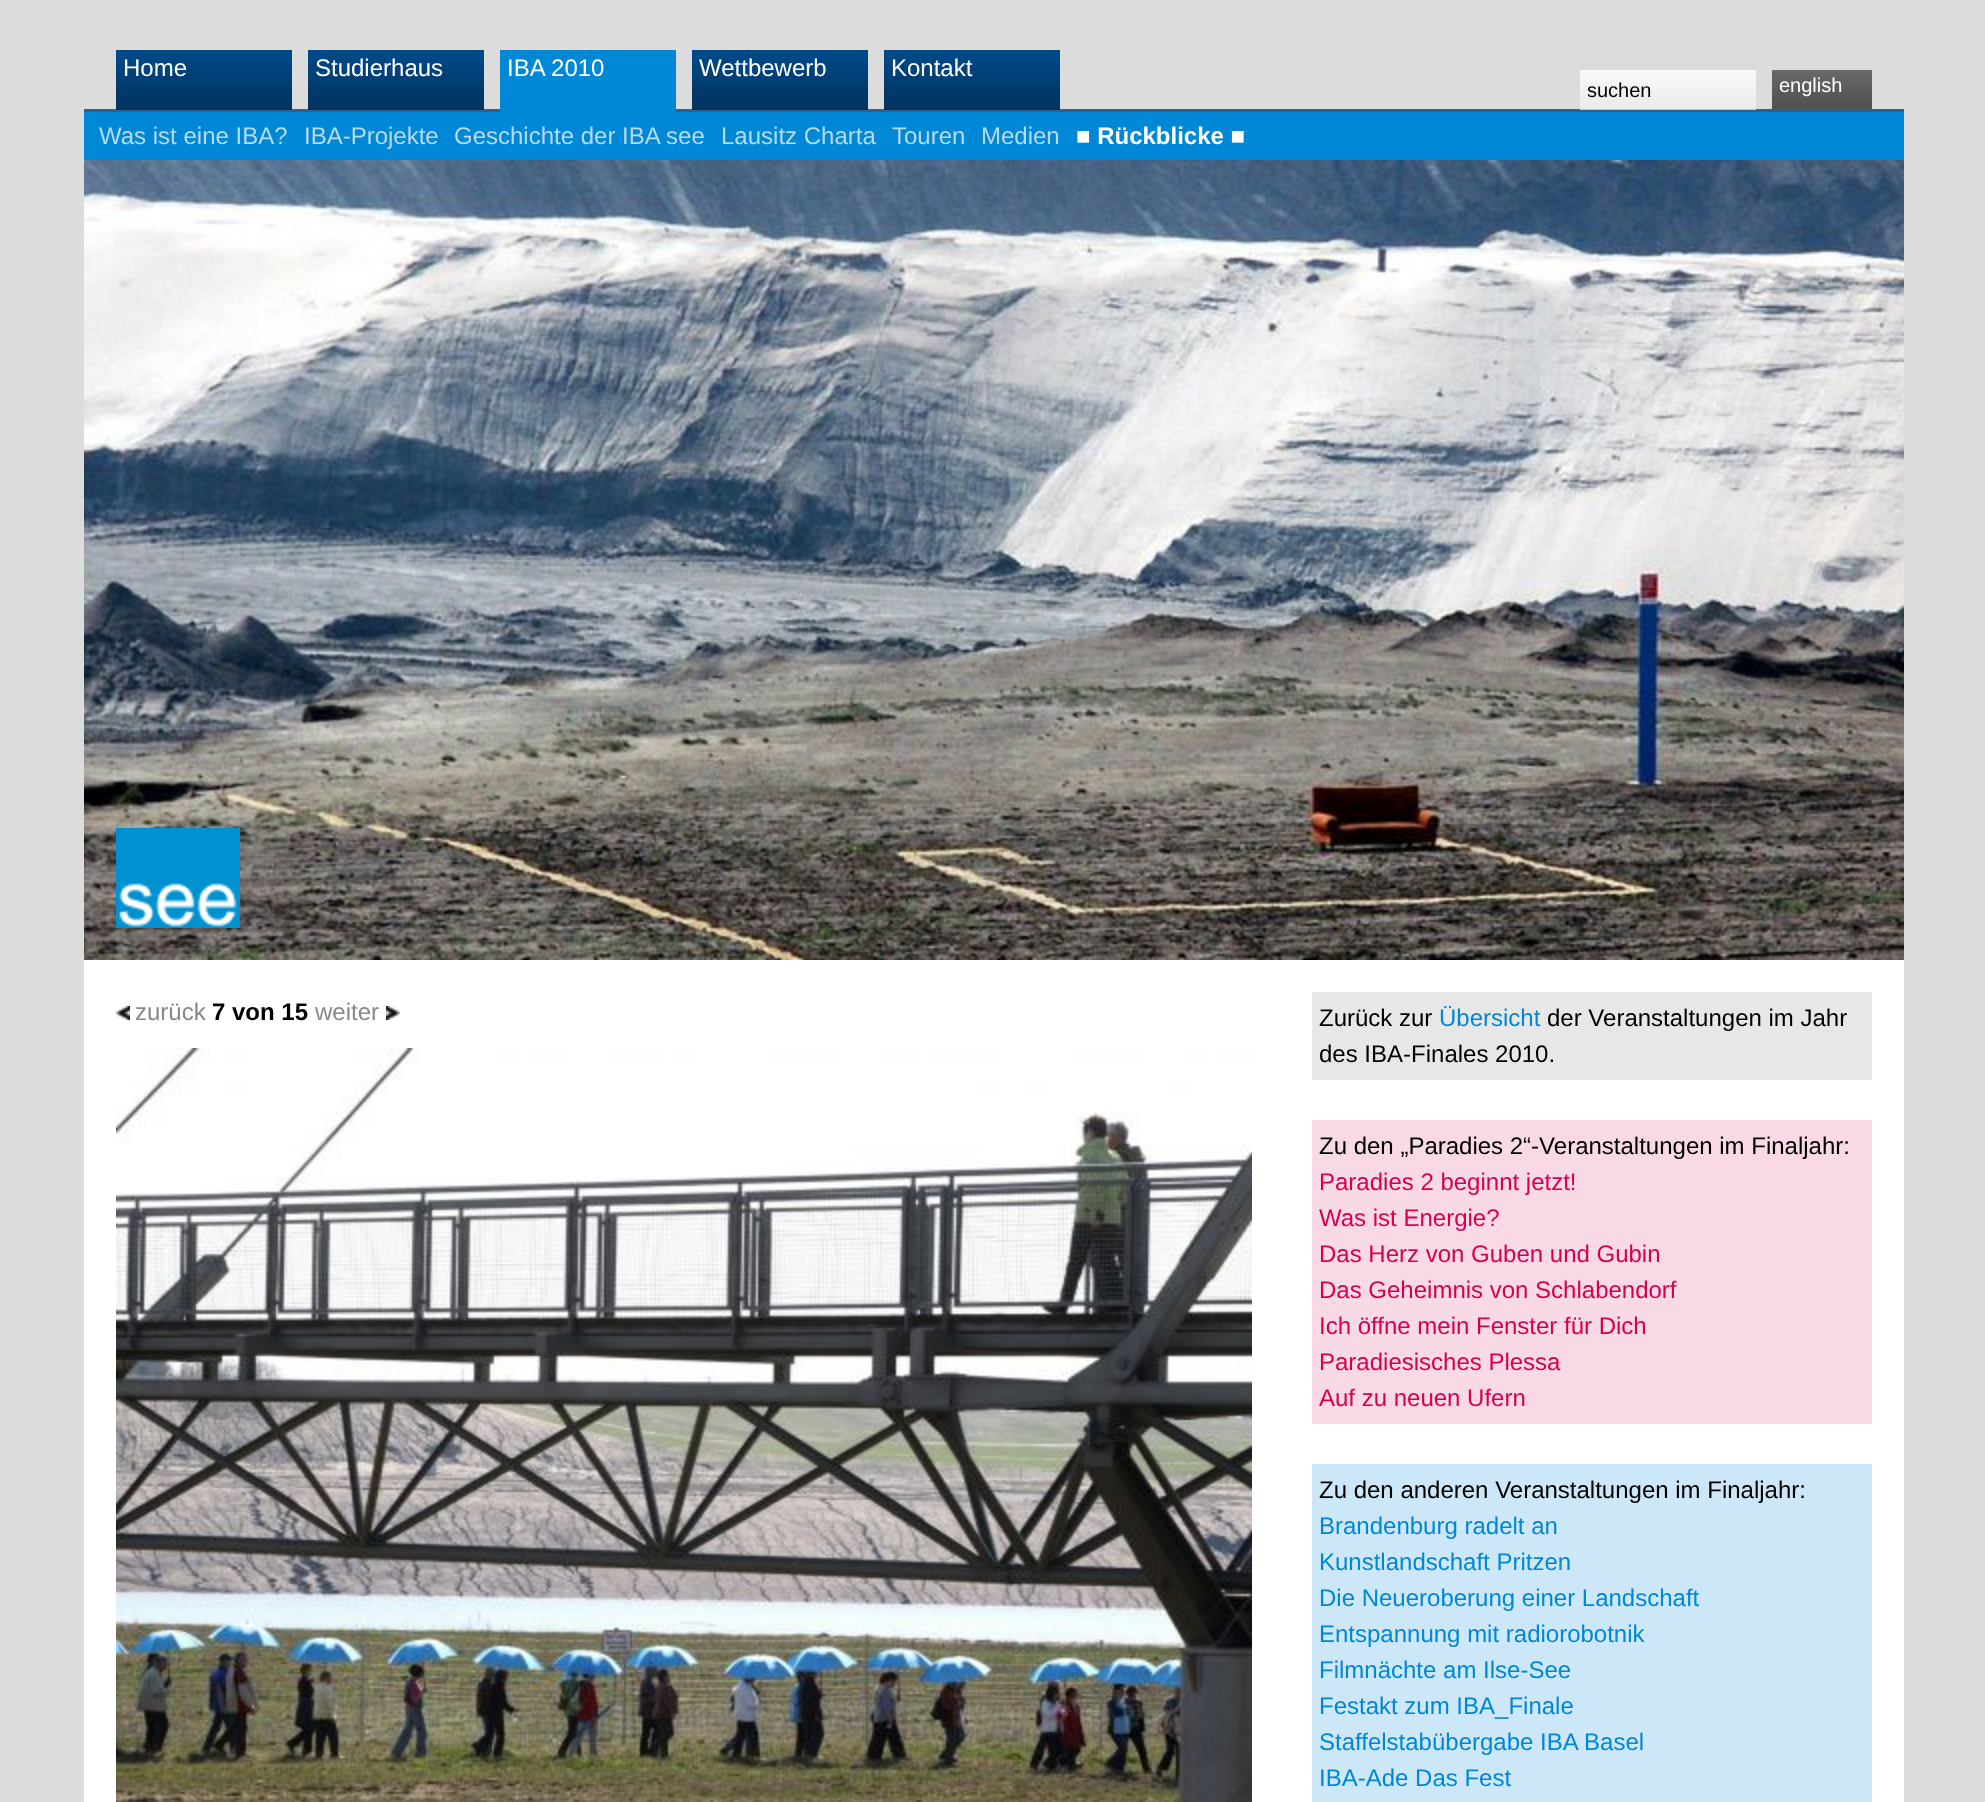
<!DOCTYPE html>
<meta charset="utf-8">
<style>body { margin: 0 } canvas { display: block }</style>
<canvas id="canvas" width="1985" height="1802"></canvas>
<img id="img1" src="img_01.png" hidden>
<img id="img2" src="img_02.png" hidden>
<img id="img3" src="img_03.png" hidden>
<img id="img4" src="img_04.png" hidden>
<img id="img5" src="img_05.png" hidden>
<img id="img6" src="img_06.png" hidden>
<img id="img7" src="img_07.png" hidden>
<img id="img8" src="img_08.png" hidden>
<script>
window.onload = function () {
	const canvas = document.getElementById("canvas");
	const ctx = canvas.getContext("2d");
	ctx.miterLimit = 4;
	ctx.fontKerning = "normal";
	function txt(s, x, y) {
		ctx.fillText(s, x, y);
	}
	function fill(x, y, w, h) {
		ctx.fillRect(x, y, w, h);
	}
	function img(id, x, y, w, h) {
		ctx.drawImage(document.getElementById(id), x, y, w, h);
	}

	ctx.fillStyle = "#DCDCDC";
	fill(0, 0, 1985, 1802);
	ctx.fillStyle = "#375D7F";
	fill(84, 109, 1820, 3);
	img("img1", 116, 50, 176, 60);
	img("img1", 308, 50, 176, 60);
	ctx.fillStyle = "#0087D5";
	fill(500, 50, 176, 62);
	img("img1", 692, 50, 176, 60);
	img("img1", 884, 50, 176, 60);
	img("img2", 1580, 70, 176, 40);
	img("img3", 1772, 70, 100, 40);
	fill(84, 112, 1820, 48);
	img("img4", 84, 160, 1820, 800);
	img("img5", 116, 828, 124, 100);
	ctx.fillStyle = "#FFFFFF";
	fill(84, 960, 1820, 842);
	img("img6", 116, 1006, 14, 14);
	img("img7", 386, 1006, 14, 14);
	img("img8", 116, 1048, 1136, 754);
	ctx.fillStyle = "#E7E7E8";
	fill(1312, 992, 560, 88);
	ctx.fillStyle = "#F9D9E5";
	fill(1312, 1120, 560, 304);
	ctx.fillStyle = "#CCE7F7";
	fill(1312, 1464, 560, 338);
	ctx.font = "24px Liberation Sans";
	ctx.fillStyle = "#FFFFFF";
	txt("Home", 123, 76);
	txt("Studierhaus", 315, 76);
	txt("IBA 2010", 507, 76);
	txt("Wettbewerb", 699, 76);
	txt("Kontakt", 891, 76);
	ctx.font = "20px Liberation Sans";
	ctx.fillStyle = "#000000";
	txt("suchen", 1587, 97);
	ctx.fillStyle = "#FFFFFF";
	txt("english", 1779, 92);
	ctx.font = "24px Liberation Sans";
	ctx.fillStyle = "#B3DBF2";
	txt("Was ist eine IBA?", 99, 144);
	txt("IBA-Projekte", 304, 144);
	txt("Geschichte der IBA see", 454, 144);
	txt("Lausitz Charta", 721, 144);
	txt("Touren", 892, 144);
	txt("Medien", 981, 144);
	ctx.font = "bold 24px Liberation Sans";
	ctx.fillStyle = "#FFFFFF";
	txt("■ Rückblicke ■", 1076, 144);
	ctx.font = "24px Liberation Sans";
	ctx.fillStyle = "#888888";
	txt("zurück", 135, 1020);
	ctx.font = "bold 24px Liberation Sans";
	ctx.fillStyle = "#000000";
	txt("7 von 15", 212, 1020);
	ctx.font = "24px Liberation Sans";
	ctx.fillStyle = "#888888";
	txt("weiter", 315, 1020);
	ctx.fillStyle = "#000000";
	txt("Zurück zur", 1319, 1026);
	ctx.fillStyle = "#0087D5";
	txt("Übersicht", 1439, 1026);
	ctx.fillStyle = "#000000";
	txt("der Veranstaltungen im Jahr", 1547, 1026);
	txt("des IBA-Finales 2010.", 1319, 1062);
	txt("Zu den „Paradies 2“-Veranstaltungen im Finaljahr:", 1319, 1154);
	ctx.fillStyle = "#D40050";
	txt("Paradies 2 beginnt jetzt!", 1319, 1190);
	txt("Was ist Energie?", 1319, 1226);
	txt("Das Herz von Guben und Gubin", 1319, 1262);
	txt("Das Geheimnis von Schlabendorf", 1319, 1298);
	txt("Ich öffne mein Fenster für Dich", 1319, 1334);
	txt("Paradiesisches Plessa", 1319, 1370);
	txt("Auf zu neuen Ufern", 1319, 1406);
	ctx.fillStyle = "#000000";
	txt("Zu den anderen Veranstaltungen im Finaljahr:", 1319, 1498);
	ctx.fillStyle = "#0087D5";
	txt("Brandenburg radelt an", 1319, 1534);
	txt("Kunstlandschaft Pritzen", 1319, 1570);
	txt("Die Neueroberung einer Landschaft", 1319, 1606);
	txt("Entspannung mit radiorobotnik", 1319, 1642);
	txt("Filmnächte am Ilse-See", 1319, 1678);
	txt("Festakt zum IBA_Finale", 1319, 1714);
	txt("Staffelstabübergabe IBA Basel", 1319, 1750);
	txt("IBA-Ade Das Fest", 1319, 1786);
};
</script>
